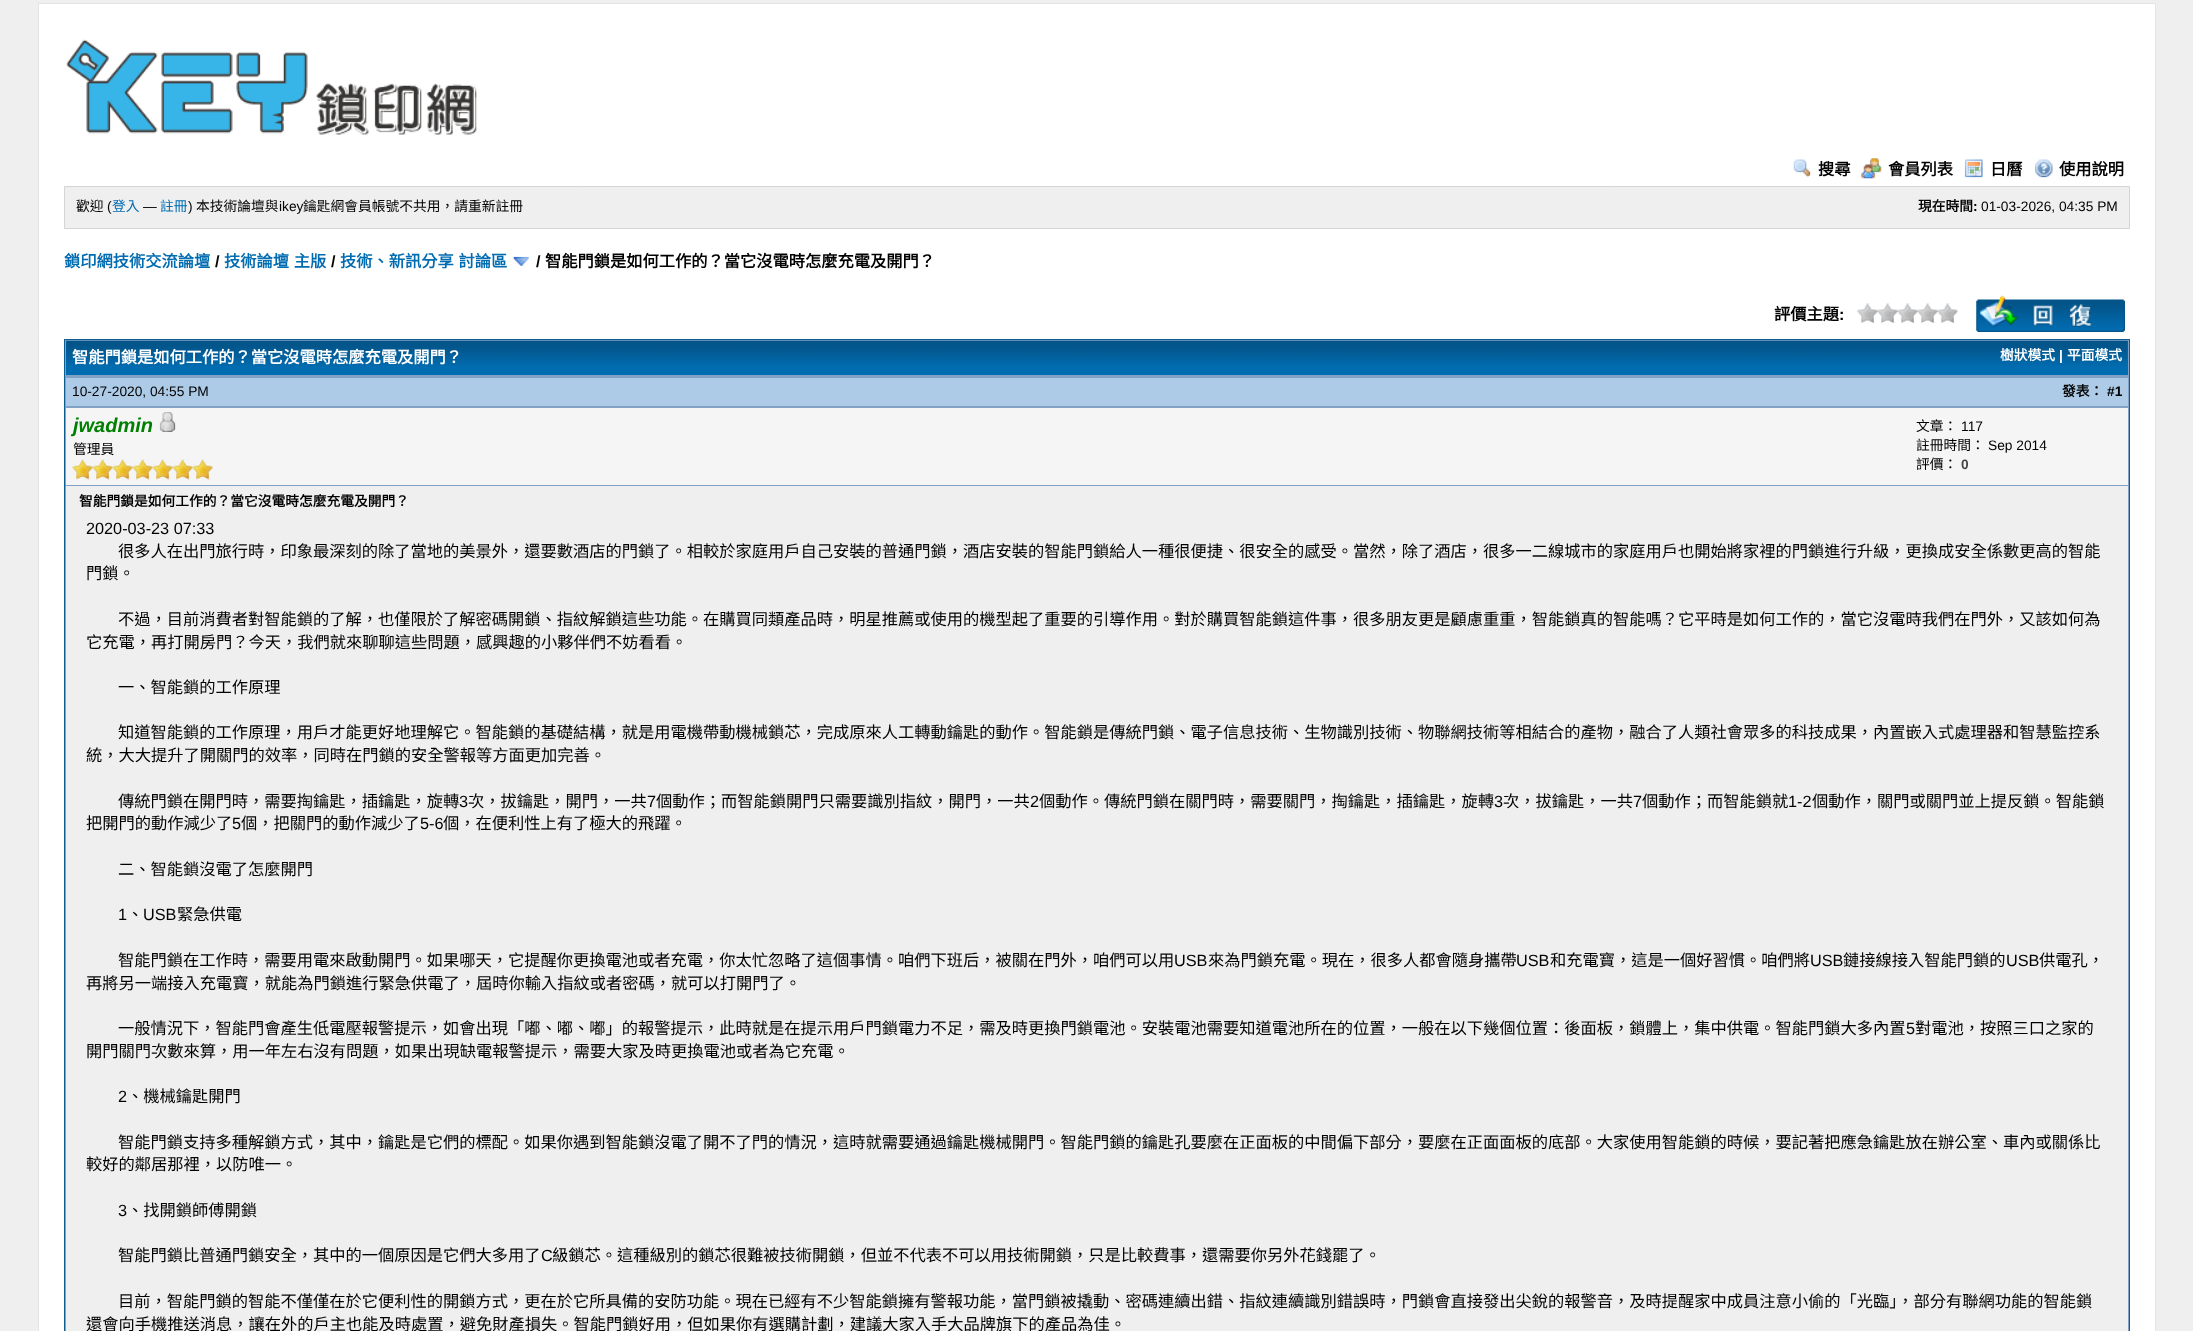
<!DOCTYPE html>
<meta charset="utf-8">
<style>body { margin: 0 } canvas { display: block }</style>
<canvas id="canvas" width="2193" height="1331"></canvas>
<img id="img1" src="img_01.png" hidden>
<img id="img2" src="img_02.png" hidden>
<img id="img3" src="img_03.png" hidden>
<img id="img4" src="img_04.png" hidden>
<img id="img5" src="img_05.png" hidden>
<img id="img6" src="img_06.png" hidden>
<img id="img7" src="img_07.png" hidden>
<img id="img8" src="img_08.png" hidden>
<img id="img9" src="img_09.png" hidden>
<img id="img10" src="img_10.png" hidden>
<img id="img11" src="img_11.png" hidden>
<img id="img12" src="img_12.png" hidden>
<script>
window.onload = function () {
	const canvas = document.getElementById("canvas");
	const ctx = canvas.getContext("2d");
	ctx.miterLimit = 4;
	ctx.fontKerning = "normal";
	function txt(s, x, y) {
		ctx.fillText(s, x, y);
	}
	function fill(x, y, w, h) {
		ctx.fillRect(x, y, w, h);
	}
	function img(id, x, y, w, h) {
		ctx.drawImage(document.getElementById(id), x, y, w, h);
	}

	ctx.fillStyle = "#EFEFEF";
	fill(0, 0, 2193, 1331);
	ctx.fillStyle = "#FFFFFF";
	ctx.beginPath();
	ctx.rect(38.5, 3.5, 2117, 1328);
	ctx.fill();
	ctx.strokeStyle = "#E4E4E4";
	ctx.stroke();
	img("img1", 66, 39, 411, 96);
	img("img2", 1793, 159, 18, 19);
	img("img3", 1861, 158, 21, 21);
	img("img4", 1964, 159, 19, 19);
	img("img5", 2034, 159, 19, 19);
	ctx.fillStyle = "#EFEFEF";
	ctx.beginPath();
	ctx.rect(64.5, 186.5, 2065, 42);
	ctx.fill();
	ctx.strokeStyle = "#D4D4D4";
	ctx.stroke();
	img("img6", 513, 256, 16, 10);
	img("img7", 1857, 303, 101, 21);
	img("img8", 1976, 295, 149, 37);
	ctx.fillStyle = "#81A2C4";
	fill(65, 340, 2064, 991);
	ctx.fillStyle = "#0F5C8E";
	fill(64, 339, 2066, 1);
	fill(2129, 339, 1, 992);
	fill(64, 339, 1, 992);
	ctx.fillStyle = "#026CB1";
	fill(66, 341, 2062, 34);
	img("img9", 66, 340, 2062, 26);
	ctx.fillStyle = "#ADCBE7";
	fill(66, 378, 2062, 28);
	ctx.fillStyle = "#F5F5F5";
	fill(66, 408, 2062, 77);
	img("img10", 159, 412, 17, 20);
	img("img11", 72, 459, 21, 21);
	img("img12", 92, 459, 21, 21);
	img("img12", 112, 459, 21, 21);
	img("img12", 132, 459, 21, 21);
	img("img12", 152, 459, 21, 21);
	img("img12", 172, 459, 21, 21);
	img("img12", 192, 459, 21, 21);
	ctx.fillStyle = "#EFEFEF";
	fill(66, 486, 2062, 845);
	ctx.font = "bold 16.25px Noto Sans CJK TC";
	ctx.fillStyle = "#000000";
	txt("搜尋", 1818, 175);
	txt("會員列表", 1888, 175);
	txt("日曆", 1990, 175);
	txt("使用說明", 2059, 175);
	ctx.font = "13.75px Noto Sans CJK TC";
	txt("歡迎", 76, 211);
	ctx.font = "13.75px Liberation Sans";
	txt("(", 107, 211);
	ctx.font = "13.75px Noto Sans CJK TC";
	ctx.fillStyle = "#026CB1";
	txt("登入", 112, 211);
	ctx.font = "13.75px Liberation Sans";
	ctx.fillStyle = "#000000";
	txt("—", 143, 211);
	ctx.font = "13.75px Noto Sans CJK TC";
	ctx.fillStyle = "#026CB1";
	txt("註冊", 160, 211);
	ctx.font = "13.75px Liberation Sans";
	ctx.fillStyle = "#000000";
	txt(")", 188, 211);
	ctx.font = "13.75px Noto Sans CJK TC";
	txt("本技術論壇與", 196, 211);
	ctx.font = "13.75px Liberation Sans";
	txt("ikey", 279, 211);
	ctx.font = "13.75px Noto Sans CJK TC";
	txt("鑰匙網會員帳號不共用，請重新註冊", 303, 211);
	ctx.font = "bold 13.75px Noto Sans CJK TC";
	txt("現在時間", 1918, 211);
	ctx.font = "bold 13.75px Liberation Sans";
	txt(":", 1973, 211);
	ctx.font = "13.75px Liberation Sans";
	txt("01-03-2026, 04:35 PM", 1981, 211);
	ctx.font = "bold 16.25px Noto Sans CJK TC";
	ctx.fillStyle = "#026CB1";
	txt("鎖印網技術交流論壇", 64, 267);
	ctx.font = "bold 16.25px Liberation Sans";
	ctx.fillStyle = "#000000";
	txt("/", 215, 267);
	ctx.wordSpacing = "1px";
	ctx.font = "bold 16.25px Noto Sans CJK TC";
	ctx.fillStyle = "#026CB1";
	txt("技術論壇 主版", 224, 267);
	ctx.wordSpacing = "0px";
	ctx.font = "bold 16.25px Liberation Sans";
	ctx.fillStyle = "#000000";
	txt("/", 331, 267);
	ctx.wordSpacing = "1px";
	ctx.font = "bold 16.25px Noto Sans CJK TC";
	ctx.fillStyle = "#026CB1";
	txt("技術、新訊分享 討論區", 340, 267);
	ctx.wordSpacing = "0px";
	ctx.font = "bold 16.25px Liberation Sans";
	ctx.fillStyle = "#000000";
	txt("/", 536, 267);
	ctx.font = "bold 16.25px Noto Sans CJK TC";
	txt("智能門鎖是如何工作的？當它沒電時怎麼充電及開門？", 545, 267);
	txt("評價主題", 1774, 320);
	ctx.font = "bold 16.25px Liberation Sans";
	txt(":", 1839, 320);
	ctx.font = "bold 16.25px Noto Sans CJK TC";
	ctx.fillStyle = "#FFFFFF";
	txt("智能門鎖是如何工作的？當它沒電時怎麼充電及開門？", 72, 363);
	ctx.font = "bold 13.75px Noto Sans CJK TC";
	txt("樹狀模式", 2000, 360);
	ctx.font = "bold 13.75px Liberation Sans";
	txt("|", 2059, 360);
	ctx.font = "bold 13.75px Noto Sans CJK TC";
	txt("平面模式", 2067, 360);
	ctx.font = "13.75px Liberation Sans";
	ctx.fillStyle = "#000000";
	txt("10-27-2020, 04:55 PM", 72, 396);
	ctx.font = "bold 13.75px Noto Sans CJK TC";
	txt("發表：", 2062, 396);
	ctx.font = "bold 13.75px Liberation Sans";
	txt("#1", 2107, 396);
	ctx.font = "italic bold 20px Liberation Sans";
	ctx.fillStyle = "#008000";
	txt("jwadmin", 73, 432);
	ctx.font = "13.75px Noto Sans CJK TC";
	ctx.fillStyle = "#000000";
	txt("管理員", 73, 454);
	txt("文章：", 1916, 431);
	ctx.font = "13.75px Liberation Sans";
	txt("117", 1961, 431);
	ctx.font = "13.75px Noto Sans CJK TC";
	txt("註冊時間：", 1916, 450);
	ctx.font = "13.75px Liberation Sans";
	txt("Sep 2014", 1988, 450);
	ctx.font = "13.75px Noto Sans CJK TC";
	txt("評價：", 1916, 469);
	ctx.font = "bold 13.75px Liberation Sans";
	ctx.fillStyle = "#444444";
	txt("0", 1961, 469);
	ctx.font = "bold 13.75px Noto Sans CJK TC";
	ctx.fillStyle = "#000000";
	txt("智能門鎖是如何工作的？當它沒電時怎麼充電及開門？", 79, 506);
	ctx.font = "16.25px Liberation Sans";
	txt("2020-03-23 07:33", 86, 534);
	ctx.font = "16.25px Noto Sans CJK TC";
	txt("很多人在出門旅行時，印象最深刻的除了當地的美景外，還要數酒店的門鎖了。相較於家庭用戶自己安裝的普通門鎖，酒店安裝的智能門鎖給人一種很便捷、很安全的感受。當然，除了酒店，很多一二線城市的家庭用戶也開始將家裡的門鎖進行升級，更換成安全係數更高的智能", 118, 557);
	txt("門鎖。", 86, 579);
	txt("不過，目前消費者對智能鎖的了解，也僅限於了解密碼開鎖、指紋解鎖這些功能。在購買同類產品時，明星推薦或使用的機型起了重要的引導作用。對於購買智能鎖這件事，很多朋友更是顧慮重重，智能鎖真的智能嗎？它平時是如何工作的，當它沒電時我們在門外，又該如何為", 118, 625);
	txt("它充電，再打開房門？今天，我們就來聊聊這些問題，感興趣的小夥伴們不妨看看。", 86, 648);
	txt("一、智能鎖的工作原理", 118, 693);
	txt("知道智能鎖的工作原理，用戶才能更好地理解它。智能鎖的基礎結構，就是用電機帶動機械鎖芯，完成原來人工轉動鑰匙的動作。智能鎖是傳統門鎖、電子信息技術、生物識別技術、物聯網技術等相結合的產物，融合了人類社會眾多的科技成果，內置嵌入式處理器和智慧監控系", 118, 738);
	txt("統，大大提升了開關門的效率，同時在門鎖的安全警報等方面更加完善。", 86, 761);
	txt("傳統門鎖在開門時，需要掏鑰匙，插鑰匙，旋轉", 118, 807);
	ctx.font = "16.25px Liberation Sans";
	txt("3", 459, 807);
	ctx.font = "16.25px Noto Sans CJK TC";
	txt("次，拔鑰匙，開門，一共", 468, 807);
	ctx.font = "16.25px Liberation Sans";
	txt("7", 647, 807);
	ctx.font = "16.25px Noto Sans CJK TC";
	txt("個動作；而智能鎖開門只需要識別指紋，開門，一共", 656, 807);
	ctx.font = "16.25px Liberation Sans";
	txt("2", 1030, 807);
	ctx.font = "16.25px Noto Sans CJK TC";
	txt("個動作。傳統門鎖在關門時，需要關門，掏鑰匙，插鑰匙，旋轉", 1039, 807);
	ctx.font = "16.25px Liberation Sans";
	txt("3", 1494, 807);
	ctx.font = "16.25px Noto Sans CJK TC";
	txt("次，拔鑰匙，一共", 1503, 807);
	ctx.font = "16.25px Liberation Sans";
	txt("7", 1633, 807);
	ctx.font = "16.25px Noto Sans CJK TC";
	txt("個動作；而智能鎖就", 1642, 807);
	ctx.font = "16.25px Liberation Sans";
	txt("1-2", 1788, 807);
	ctx.font = "16.25px Noto Sans CJK TC";
	txt("個動作，關門或關門並上提反鎖。智能鎖", 1812, 807);
	txt("把開門的動作減少了", 86, 829);
	ctx.font = "16.25px Liberation Sans";
	txt("5", 232, 829);
	ctx.font = "16.25px Noto Sans CJK TC";
	txt("個，把關門的動作減少了", 241, 829);
	ctx.font = "16.25px Liberation Sans";
	txt("5-6", 420, 829);
	ctx.font = "16.25px Noto Sans CJK TC";
	txt("個，在便利性上有了極大的飛躍。", 443, 829);
	txt("二、智能鎖沒電了怎麼開門", 118, 875);
	ctx.font = "16.25px Liberation Sans";
	txt("1", 118, 920);
	ctx.font = "16.25px Noto Sans CJK TC";
	txt("、", 127, 920);
	ctx.font = "16.25px Liberation Sans";
	txt("USB", 143, 920);
	ctx.font = "16.25px Noto Sans CJK TC";
	txt("緊急供電", 177, 920);
	txt("智能門鎖在工作時，需要用電來啟動開門。如果哪天，它提醒你更換電池或者充電，你太忙忽略了這個事情。咱們下班后，被關在門外，咱們可以用", 118, 966);
	ctx.font = "16.25px Liberation Sans";
	txt("USB", 1174, 966);
	ctx.font = "16.25px Noto Sans CJK TC";
	txt("來為門鎖充電。現在，很多人都會隨身攜帶", 1208, 966);
	ctx.font = "16.25px Liberation Sans";
	txt("USB", 1516, 966);
	ctx.font = "16.25px Noto Sans CJK TC";
	txt("和充電寶，這是一個好習慣。咱們將", 1550, 966);
	ctx.font = "16.25px Liberation Sans";
	txt("USB", 1810, 966);
	ctx.font = "16.25px Noto Sans CJK TC";
	txt("鏈接線接入智能門鎖的", 1843, 966);
	ctx.font = "16.25px Liberation Sans";
	txt("USB", 2006, 966);
	ctx.font = "16.25px Noto Sans CJK TC";
	txt("供電孔，", 2039, 966);
	txt("再將另一端接入充電寶，就能為門鎖進行緊急供電了，屆時你輸入指紋或者密碼，就可以打開門了。", 86, 989);
	txt("一般情況下，智能門會產生低電壓報警提示，如會出現「嘟、嘟、嘟」的報警提示，此時就是在提示用戶門鎖電力不足，需及時更換門鎖電池。安裝電池需要知道電池所在的位置，一般在以下幾個位置：後面板，鎖體上，集中供電。智能門鎖大多內置", 118, 1034);
	ctx.font = "16.25px Liberation Sans";
	txt("5", 1906, 1034);
	ctx.font = "16.25px Noto Sans CJK TC";
	txt("對電池，按照三口之家的", 1915, 1034);
	txt("開門關門次數來算，用一年左右沒有問題，如果出現缺電報警提示，需要大家及時更換電池或者為它充電。", 86, 1057);
	ctx.font = "16.25px Liberation Sans";
	txt("2", 118, 1102);
	ctx.font = "16.25px Noto Sans CJK TC";
	txt("、機械鑰匙開門", 127, 1102);
	txt("智能門鎖支持多種解鎖方式，其中，鑰匙是它們的標配。如果你遇到智能鎖沒電了開不了門的情況，這時就需要通過鑰匙機械開門。智能門鎖的鑰匙孔要麼在正面板的中間偏下部分，要麼在正面面板的底部。大家使用智能鎖的時候，要記著把應急鑰匙放在辦公室、車內或關係比", 118, 1148);
	txt("較好的鄰居那裡，以防唯一。", 86, 1170);
	ctx.font = "16.25px Liberation Sans";
	txt("3", 118, 1216);
	ctx.font = "16.25px Noto Sans CJK TC";
	txt("、找開鎖師傅開鎖", 127, 1216);
	txt("智能門鎖比普通門鎖安全，其中的一個原因是它們大多用了", 118, 1261);
	ctx.font = "16.25px Liberation Sans";
	txt("C", 541, 1261);
	ctx.font = "16.25px Noto Sans CJK TC";
	txt("級鎖芯。這種級別的鎖芯很難被技術開鎖，但並不代表不可以用技術開鎖，只是比較費事，還需要你另外花錢罷了。", 552, 1261);
	txt("目前，智能門鎖的智能不僅僅在於它便利性的開鎖方式，更在於它所具備的安防功能。現在已經有不少智能鎖擁有警報功能，當門鎖被撬動、密碼連續出錯、指紋連續識別錯誤時，門鎖會直接發出尖銳的報警音，及時提醒家中成員注意小偷的「光臨」，部分有聯網功能的智能鎖", 118, 1307);
	txt("還會向手機推送消息，讓在外的戶主也能及時處置，避免財產損失。智能門鎖好用，但如果你有選購計劃，建議大家入手大品牌旗下的產品為佳。", 86, 1330);
};
</script>
